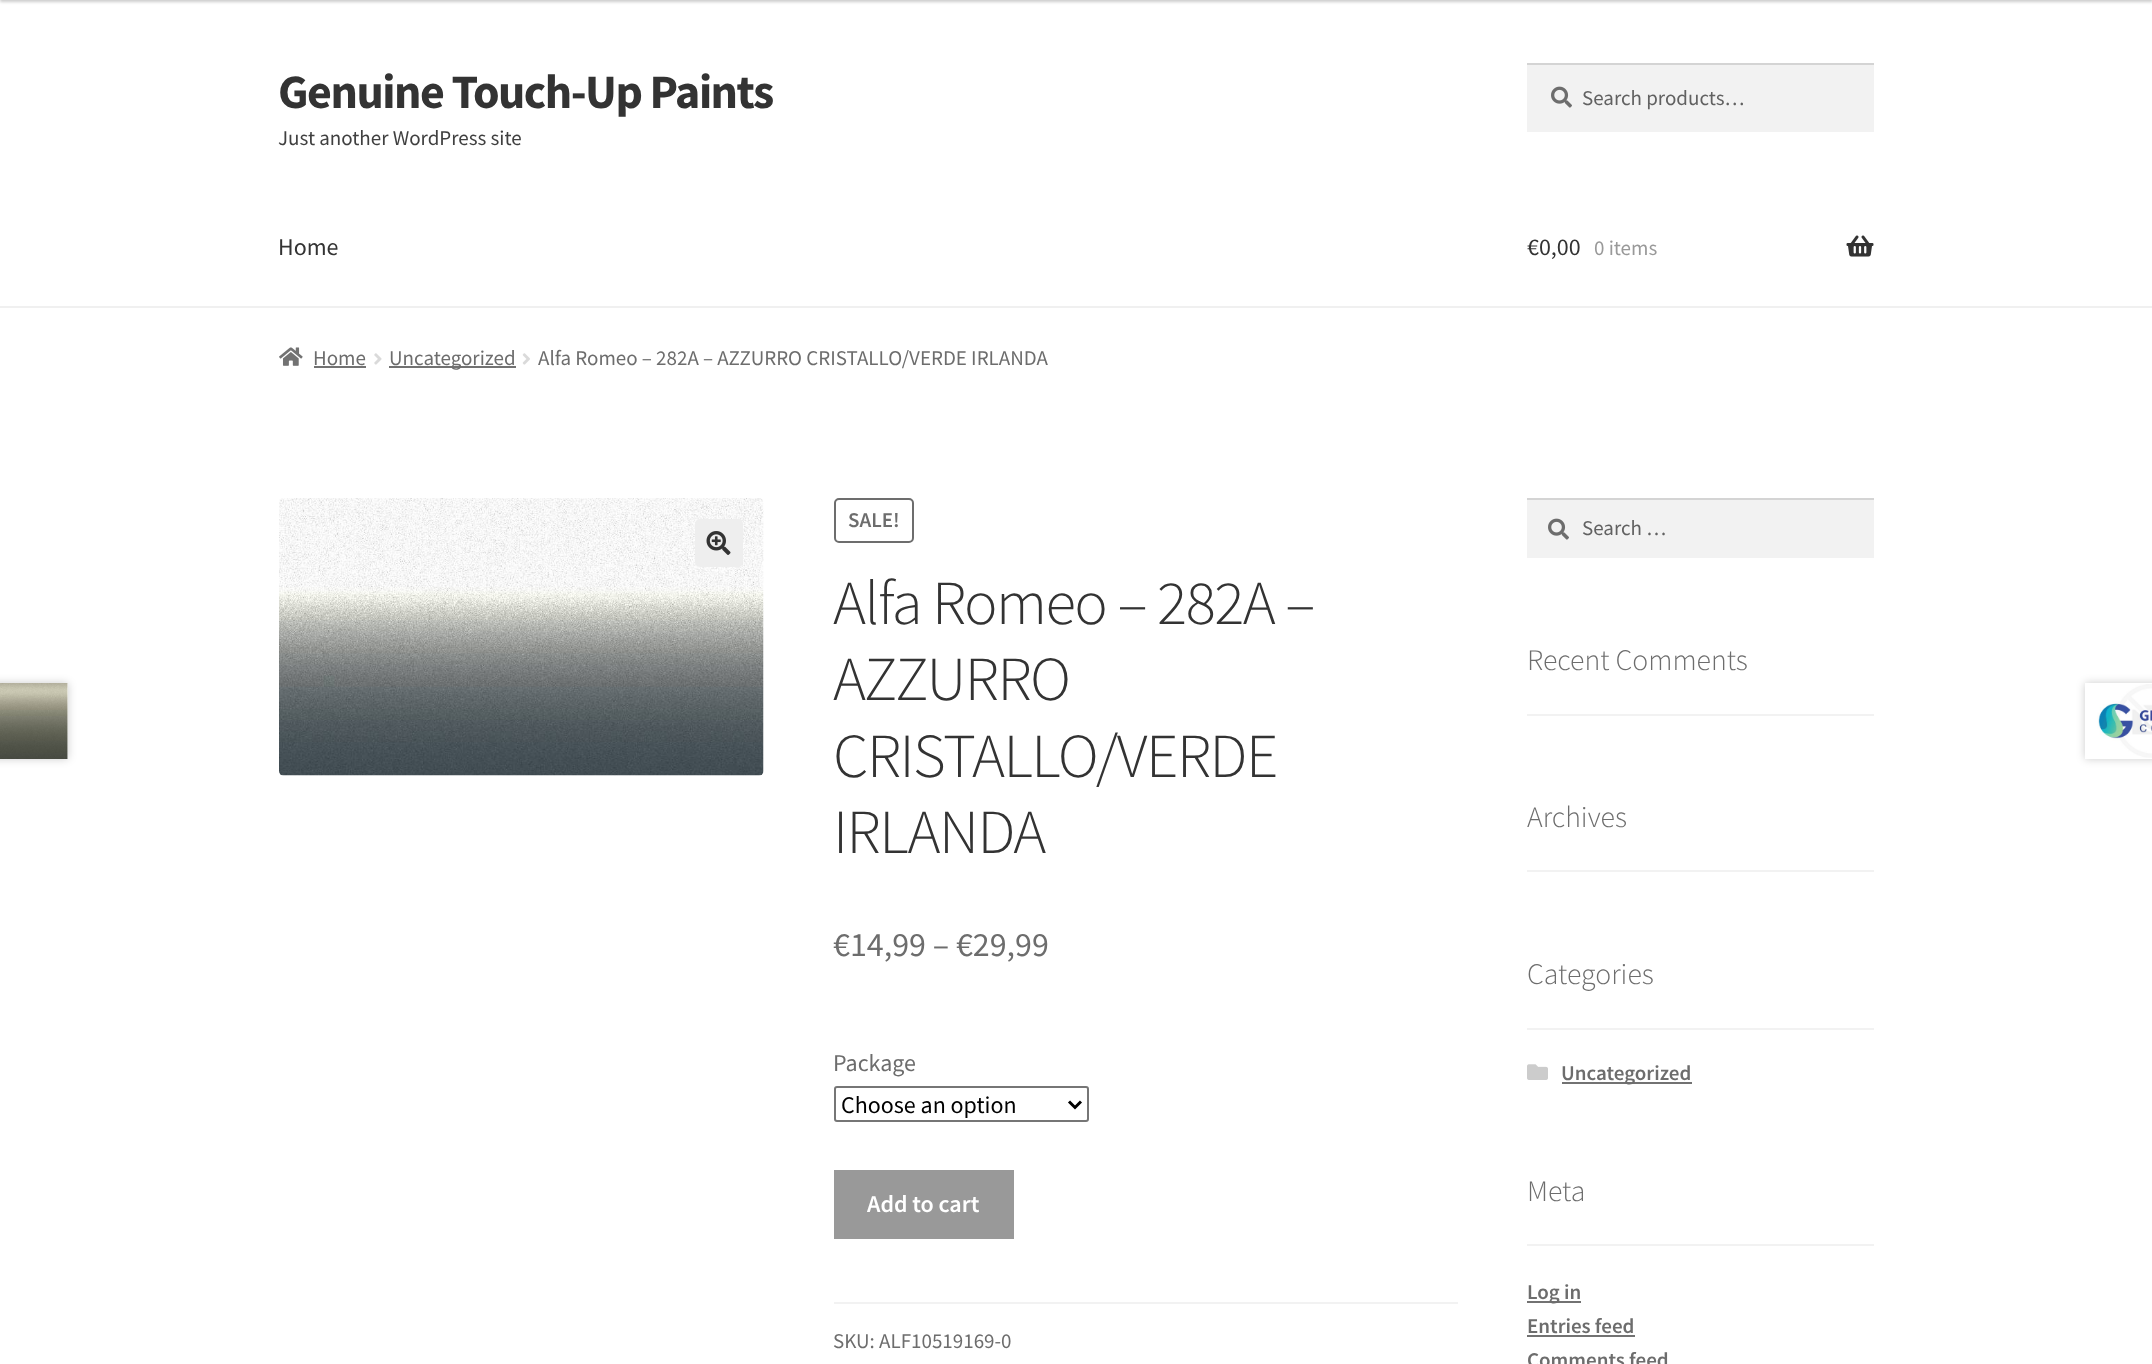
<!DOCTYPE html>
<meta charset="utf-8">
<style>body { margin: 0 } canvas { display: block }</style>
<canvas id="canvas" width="2152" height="1364"></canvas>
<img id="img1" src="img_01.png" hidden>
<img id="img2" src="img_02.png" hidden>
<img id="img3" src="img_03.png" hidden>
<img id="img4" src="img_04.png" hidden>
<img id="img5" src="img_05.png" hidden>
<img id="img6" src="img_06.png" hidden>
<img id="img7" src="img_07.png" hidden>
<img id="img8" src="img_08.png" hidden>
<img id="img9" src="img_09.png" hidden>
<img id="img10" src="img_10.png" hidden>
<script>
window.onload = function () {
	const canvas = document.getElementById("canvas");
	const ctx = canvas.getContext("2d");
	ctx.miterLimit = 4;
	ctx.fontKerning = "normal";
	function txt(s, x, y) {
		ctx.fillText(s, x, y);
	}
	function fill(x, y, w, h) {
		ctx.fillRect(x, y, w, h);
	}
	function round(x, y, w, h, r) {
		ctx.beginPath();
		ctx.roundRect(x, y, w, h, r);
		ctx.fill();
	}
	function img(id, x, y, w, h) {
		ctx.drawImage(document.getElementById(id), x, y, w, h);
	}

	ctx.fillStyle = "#FFFFFF";
	fill(0, 0, 2152, 1364);
	ctx.fillStyle = "rgba(0, 0, 0, 0.2)";
	ctx.filter = "blur(1.5px)";
	ctx.beginPath();
	ctx.rect(0, -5, 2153, 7);
	ctx.fill();
	ctx.filter = "none";
	ctx.fillStyle = "#F0F0F0";
	fill(0, 306, 2152, 2);
	ctx.fillStyle = "#F2F2F2";
	fill(1527, 65, 347, 67);
	img("img1", 1551, 86, 21, 22);
	ctx.fillStyle = "#D4D4D4";
	fill(1527, 63, 347, 2);
	img("img2", 1846, 235, 28, 22);
	img("img3", 279, 347, 24, 19);
	ctx.fillStyle = "#727272";
	fill(314, 366, 52, 2);
	img("img4", 374, 353, 8, 12);
	fill(389, 366, 127, 2);
	img("img5", 522, 353, 8, 12);
	img("img6", 279, 498, 485, 278);
	ctx.fillStyle = "#EEEEEE";
	round(695, 519, 48, 48, 5);
	img("img7", 706, 531, 25, 24);
	ctx.beginPath();
	ctx.roundRect(835, 499, 78, 43, 4);
	ctx.strokeStyle = "#6D6D6D";
	ctx.lineWidth = 2;
	ctx.stroke();
	ctx.beginPath();
	ctx.roundRect(835, 1087, 253, 34, 2);
	ctx.strokeStyle = "#767676";
	ctx.stroke();
	ctx.beginPath();
	ctx.moveTo(1069, 1101.5);
	ctx.lineTo(1075, 1107.5);
	ctx.lineTo(1081, 1101.5);
	ctx.strokeStyle = "#000000";
	ctx.lineWidth = 3;
	ctx.stroke();
	ctx.fillStyle = "#999999";
	fill(834, 1170, 180, 69);
	ctx.fillStyle = "#F2F2F2";
	fill(834, 1302, 624, 2);
	ctx.fillStyle = "rgba(0, 0, 0, 0.2)";
	ctx.filter = "blur(4px)";
	ctx.beginPath();
	ctx.rect(-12, 683, 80, 76);
	ctx.fill();
	ctx.filter = "none";
	ctx.fillStyle = "#FFFFFF";
	fill(67, 683, 1, 76);
	img("img8", 0, 683, 68, 76);
	ctx.save();
	ctx.beginPath();
	ctx.moveTo(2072, 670);
	ctx.lineTo(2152, 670);
	ctx.lineTo(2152, 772);
	ctx.lineTo(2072, 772);
	ctx.closePath();
	ctx.moveTo(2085, 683);
	ctx.lineTo(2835, 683);
	ctx.lineTo(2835, 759);
	ctx.lineTo(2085, 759);
	ctx.closePath();
	ctx.clip("evenodd");
	ctx.fillStyle = "rgba(0, 0, 0, 0.2)";
	ctx.filter = "blur(4px)";
	ctx.beginPath();
	ctx.rect(2085, 683, 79, 76);
	ctx.fill();
	ctx.filter = "none";
	ctx.restore();
	img("img9", 2097, 684, 55, 74);
	ctx.fillStyle = "#F2F2F2";
	fill(1527, 500, 347, 58);
	img("img1", 1548, 518, 21, 22);
	ctx.fillStyle = "#D4D4D4";
	fill(1527, 498, 347, 2);
	ctx.fillStyle = "#F2F2F2";
	fill(1527, 714, 347, 2);
	fill(1527, 870, 347, 2);
	fill(1527, 1028, 347, 2);
	img("img10", 1527, 1064, 21, 16);
	ctx.fillStyle = "#727272";
	fill(1562, 1082, 130, 2);
	ctx.fillStyle = "#F2F2F2";
	fill(1527, 1244, 347, 2);
	ctx.fillStyle = "#727272";
	fill(1527, 1301, 54, 2);
	fill(1527, 1335, 108, 2);
	ctx.letterSpacing = "-1.5px";
	ctx.font = "bold 48px Source Sans Pro";
	ctx.fillStyle = "#333333";
	txt("Genuine Touch-Up Paints", 278, 108);
	ctx.letterSpacing = "0px";
	ctx.font = "21px Source Sans Pro";
	ctx.fillStyle = "#404040";
	txt("Just another WordPress site", 278, 145);
	ctx.fillStyle = "#616161";
	txt("Search products…", 1582, 105);
	ctx.font = "24px Source Sans Pro";
	ctx.fillStyle = "#333333";
	txt("Home", 278, 255);
	txt("€0,00", 1527, 255);
	ctx.font = "21px Source Sans Pro";
	ctx.fillStyle = "#999999";
	txt("0 items", 1594, 255);
	ctx.fillStyle = "#6D6D6D";
	txt("Home", 313, 365);
	txt("Uncategorized", 389, 365);
	txt("Alfa Romeo – 282A – AZZURRO CRISTALLO/VERDE IRLANDA", 538, 365);
	ctx.font = "600 21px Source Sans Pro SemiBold";
	txt("SALE!", 848, 527);
	ctx.letterSpacing = "-1.5px";
	ctx.font = "300 62.75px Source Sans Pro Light";
	ctx.fillStyle = "#333333";
	txt("Alfa Romeo – 282A –", 833, 624);
	txt("AZZURRO", 833, 700);
	txt("CRISTALLO/VERDE", 833, 777);
	txt("IRLANDA", 833, 853);
	ctx.letterSpacing = "0px";
	ctx.font = "34px Source Sans Pro";
	ctx.fillStyle = "#6D6D6D";
	txt("€14,99 – €29,99", 833, 956);
	ctx.font = "24px Source Sans Pro";
	txt("Package", 833, 1071);
	ctx.fillStyle = "#000000";
	txt("Choose an option", 841, 1113);
	ctx.font = "600 24px Source Sans Pro SemiBold";
	ctx.fillStyle = "#FFFFFF";
	txt("Add to cart", 867, 1212);
	ctx.font = "21px Source Sans Pro";
	ctx.fillStyle = "#6D6D6D";
	txt("SKU: ALF10519169-0", 833, 1348);
	ctx.fillStyle = "#616161";
	txt("Search …", 1582, 535);
	ctx.font = "300 29.75px Source Sans Pro Light";
	ctx.fillStyle = "#6D6D6D";
	txt("Recent Comments", 1527, 670);
	txt("Archives", 1527, 827);
	txt("Categories", 1527, 984);
	ctx.font = "600 21px Source Sans Pro SemiBold";
	txt("Uncategorized", 1561, 1080);
	ctx.font = "300 29.75px Source Sans Pro Light";
	txt("Meta", 1527, 1201);
	ctx.font = "600 21px Source Sans Pro SemiBold";
	txt("Log in", 1527, 1299);
	txt("Entries feed", 1527, 1333);
	txt("Comments feed", 1527, 1367);
};
</script>
